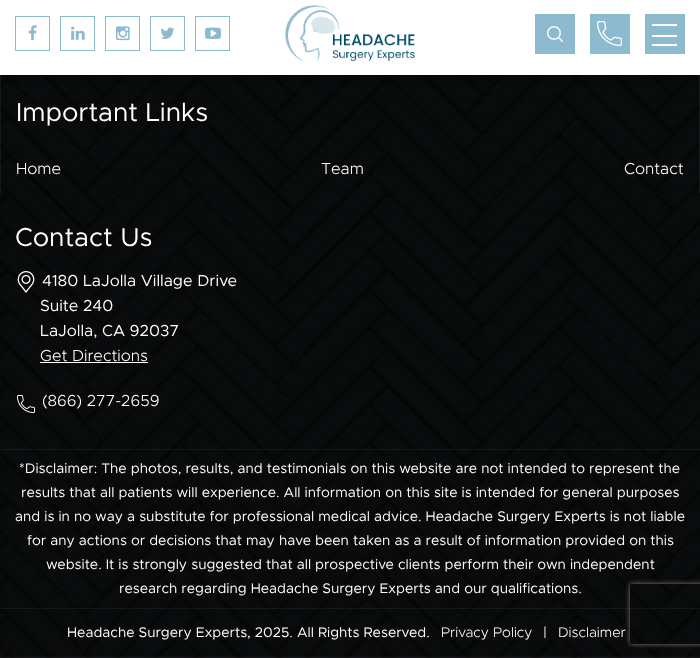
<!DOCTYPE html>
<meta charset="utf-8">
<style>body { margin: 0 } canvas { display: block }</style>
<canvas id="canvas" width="700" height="658"></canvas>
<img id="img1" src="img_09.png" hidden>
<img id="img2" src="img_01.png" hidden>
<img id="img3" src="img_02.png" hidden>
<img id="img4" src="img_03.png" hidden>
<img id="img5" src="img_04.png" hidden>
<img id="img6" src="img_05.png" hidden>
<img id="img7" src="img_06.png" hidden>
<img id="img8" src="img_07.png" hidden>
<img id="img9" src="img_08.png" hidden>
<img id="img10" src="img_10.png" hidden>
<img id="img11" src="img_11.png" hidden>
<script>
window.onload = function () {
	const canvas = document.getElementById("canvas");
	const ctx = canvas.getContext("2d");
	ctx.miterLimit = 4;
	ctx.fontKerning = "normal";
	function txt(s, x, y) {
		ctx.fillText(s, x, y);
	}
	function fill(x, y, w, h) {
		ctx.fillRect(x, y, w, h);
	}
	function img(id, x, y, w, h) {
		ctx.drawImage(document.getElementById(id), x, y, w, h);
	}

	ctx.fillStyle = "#FFFFFF";
	fill(0, 0, 700, 658);
	img("img1", 0, 75, 700, 583);
	ctx.fillStyle = "rgba(255, 255, 255, 0.06)";
	fill(699, 68, 1, 125);
	fill(0, 68, 1, 125);
	ctx.fillStyle = "rgba(0, 0, 0, 0.5)";
	ctx.filter = "blur(5px)";
	ctx.beginPath();
	ctx.rect(0, 0, 700, 75);
	ctx.fill();
	ctx.filter = "none";
	ctx.fillStyle = "#FFFFFF";
	fill(0, 0, 700, 75);
	ctx.strokeStyle = "#8DBACF";
	ctx.strokeRect(15.5, 16.5, 34, 34);
	img("img2", 28, 25, 9, 16);
	ctx.strokeRect(60.5, 16.5, 34, 34);
	img("img3", 71, 26, 14, 14);
	ctx.strokeRect(105.5, 16.5, 34, 34);
	img("img4", 116, 26, 14, 15);
	ctx.strokeRect(150.5, 16.5, 34, 34);
	img("img5", 160, 27, 15, 12);
	ctx.strokeRect(195.5, 16.5, 34, 34);
	img("img6", 205, 27, 16, 12);
	img("img7", 285, 5, 130, 57);
	ctx.fillStyle = "#8DBACE";
	fill(535, 14, 40, 40);
	img("img8", 547, 26, 16, 16);
	fill(590, 14, 40, 40);
	img("img9", 597, 21, 25, 25);
	fill(645, 14, 40, 40);
	ctx.fillStyle = "#FFFFFF";
	fill(652, 24, 25, 2);
	fill(652, 35, 25, 2);
	fill(652, 44, 25, 2);
	img("img10", 17, 271, 18, 22);
	fill(40, 362, 108, 1);
	img("img11", 17, 395, 18, 18);
	ctx.fillStyle = "rgba(255, 255, 255, 0.06)";
	fill(0, 449, 700, 1);
	fill(0, 608, 700, 1);
	ctx.save();
	ctx.beginPath();
	ctx.moveTo(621, 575);
	ctx.lineTo(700, 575);
	ctx.lineTo(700, 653);
	ctx.lineTo(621, 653);
	ctx.closePath();
	ctx.moveTo(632, 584);
	ctx.lineTo(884, 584);
	ctx.bezierCurveTo(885, 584, 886, 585, 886, 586);
	ctx.lineTo(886, 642);
	ctx.bezierCurveTo(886, 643, 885, 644, 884, 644);
	ctx.lineTo(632, 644);
	ctx.bezierCurveTo(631, 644, 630, 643, 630, 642);
	ctx.lineTo(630, 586);
	ctx.bezierCurveTo(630, 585, 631, 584, 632, 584);
	ctx.closePath();
	ctx.clip("evenodd");
	ctx.fillStyle = "#808080";
	ctx.filter = "blur(2.5px)";
	ctx.beginPath();
	ctx.roundRect(630, 584, 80, 60, 2);
	ctx.fill();
	ctx.filter = "none";
	ctx.restore();
	ctx.font = "26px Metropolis";
	ctx.fillStyle = "#FFFFFF";
	txt("Important Links", 16, 121);
	ctx.font = "300 16px Metropolis";
	txt("Home", 16, 174);
	txt("Team", 321, 174);
	txt("Contact", 624, 174);
	ctx.font = "26px Metropolis";
	txt("Contact Us", 15, 246);
	ctx.font = "16px Metropolis";
	txt("4180 LaJolla Village Drive", 42, 286);
	txt("Suite 240", 40, 311);
	txt("LaJolla, CA 92037", 40, 336);
	ctx.font = "300 16px Metropolis";
	txt("Get Directions", 40, 361);
	txt("(866) 277-2659", 42, 406);
	ctx.font = "14px Metropolis";
	txt("*Disclaimer: The photos, results, and testimonials on this website are not intended to represent the", 19, 473);
	txt("results that all patients will experience. All information on this site is intended for general purposes", 21, 497);
	txt("and is in no way a substitute for professional medical advice. Headache Surgery Experts is not liable", 15, 521);
	txt("for any actions or decisions that may have been taken as a result of information provided on this", 27, 545);
	txt("website. It is strongly suggested that all prospective clients perform their own independent", 46, 569);
	txt("research regarding Headache Surgery Experts and our qualifications.", 119, 593);
	txt("Headache Surgery Experts, 2025. All Rights Reserved.", 67, 637);
	ctx.font = "300 14px Metropolis";
	txt("Privacy Policy", 441, 637);
	ctx.font = "14px Metropolis";
	txt("|", 543, 637);
	ctx.font = "300 14px Metropolis";
	txt("Disclaimer", 558, 637);
};
</script>
